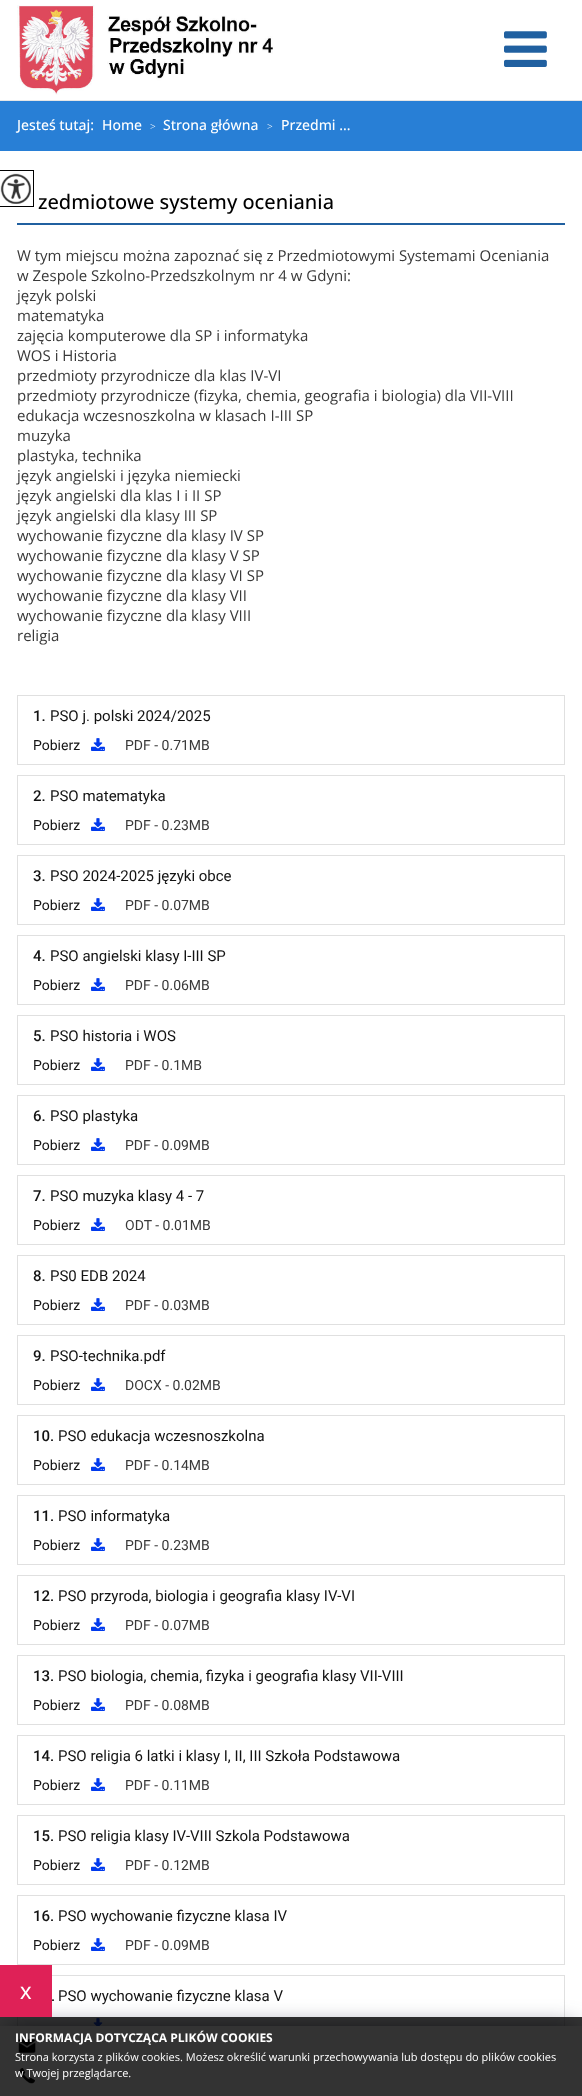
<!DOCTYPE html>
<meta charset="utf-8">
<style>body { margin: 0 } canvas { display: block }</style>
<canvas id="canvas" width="582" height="2096"></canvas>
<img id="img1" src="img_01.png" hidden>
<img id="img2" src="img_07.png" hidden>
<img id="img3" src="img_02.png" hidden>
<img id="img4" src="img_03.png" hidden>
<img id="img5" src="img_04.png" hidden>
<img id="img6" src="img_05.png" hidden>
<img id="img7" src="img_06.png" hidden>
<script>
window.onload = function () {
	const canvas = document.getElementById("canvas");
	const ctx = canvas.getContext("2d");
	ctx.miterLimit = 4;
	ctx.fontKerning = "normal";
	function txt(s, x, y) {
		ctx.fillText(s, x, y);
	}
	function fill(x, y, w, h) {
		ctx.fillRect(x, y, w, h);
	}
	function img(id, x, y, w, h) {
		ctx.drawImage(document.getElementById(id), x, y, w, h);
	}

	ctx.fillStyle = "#FFFFFF";
	fill(0, 0, 582, 2096);
	img("img1", 17, 5, 256, 90);
	ctx.strokeStyle = "#E0E0E0";
	ctx.strokeRect(17.5, 1975.5, 547, 69);
	img("img2", 93, 2018, 10, 8);
	ctx.fillStyle = "#42445A";
	ctx.filter = "blur(13px)";
	ctx.beginPath();
	ctx.rect(7, 2030, 568, 56);
	ctx.fill();
	ctx.filter = "none";
	ctx.fillStyle = "#FFFFFF";
	fill(0, 2026, 582, 70);
	img("img3", 18, 2039, 18, 14);
	img("img4", 19, 2068, 16, 16);
	ctx.fillStyle = "#E6E6E6";
	fill(0, 100, 582, 1);
	img("img5", 504, 31, 43, 36);
	ctx.fillStyle = "#287FD6";
	fill(0, 101, 582, 50);
	ctx.strokeStyle = "#000000";
	ctx.strokeRect(-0.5, 170.5, 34, 36);
	img("img6", 0, 173, 31, 31);
	ctx.fillStyle = "#2060A0";
	fill(17, 223, 548, 2);
	ctx.strokeStyle = "#E0E0E0";
	ctx.strokeRect(17.5, 695.5, 547, 69);
	img("img7", 91, 738, 14, 13);
	ctx.strokeRect(17.5, 775.5, 547, 69);
	img("img7", 91, 818, 14, 13);
	ctx.strokeRect(17.5, 855.5, 547, 69);
	img("img7", 91, 898, 14, 13);
	ctx.strokeRect(17.5, 935.5, 547, 69);
	img("img7", 91, 978, 14, 13);
	ctx.strokeRect(17.5, 1015.5, 547, 69);
	img("img7", 91, 1058, 14, 13);
	ctx.strokeRect(17.5, 1095.5, 547, 69);
	img("img7", 91, 1138, 14, 13);
	ctx.strokeRect(17.5, 1175.5, 547, 69);
	img("img7", 91, 1218, 14, 13);
	ctx.strokeRect(17.5, 1255.5, 547, 69);
	img("img7", 91, 1298, 14, 13);
	ctx.strokeRect(17.5, 1335.5, 547, 69);
	img("img7", 91, 1378, 14, 13);
	ctx.strokeRect(17.5, 1415.5, 547, 69);
	img("img7", 91, 1458, 14, 13);
	ctx.strokeRect(17.5, 1495.5, 547, 69);
	img("img7", 91, 1538, 14, 13);
	ctx.strokeRect(17.5, 1575.5, 547, 69);
	img("img7", 91, 1618, 14, 13);
	ctx.strokeRect(17.5, 1655.5, 547, 69);
	img("img7", 91, 1698, 14, 13);
	ctx.strokeRect(17.5, 1735.5, 547, 69);
	img("img7", 91, 1778, 14, 13);
	ctx.strokeRect(17.5, 1815.5, 547, 69);
	img("img7", 91, 1858, 14, 13);
	ctx.strokeRect(17.5, 1895.5, 547, 69);
	img("img7", 91, 1938, 14, 13);
	ctx.fillStyle = "rgba(0, 0, 0, 0.8)";
	fill(0, 2017, 582, 79);
	ctx.font = "500 14px Open Sans";
	ctx.fillStyle = "#FFFFFF";
	txt("Jesteś tutaj:", 17, 130);
	txt("Home", 102, 130);
	ctx.font = "300 10px Open Sans";
	txt(">", 150, 130);
	ctx.font = "500 14px Open Sans";
	txt("Strona główna", 163, 130);
	ctx.font = "300 10px Open Sans";
	txt(">", 267, 130);
	ctx.font = "500 14px Open Sans";
	txt("Przedmi ...", 281, 130);
	ctx.font = "500 20px Open Sans";
	ctx.fillStyle = "#000000";
	txt("zedmiotowe systemy oceniania", 38, 209);
	ctx.font = "15px Open Sans";
	ctx.fillStyle = "#393939";
	txt("W tym miejscu można zapoznać się z Przedmiotowymi Systemami Oceniania", 17, 261);
	txt("w Zespole Szkolno-Przedszkolnym nr 4 w Gdyni:", 17, 281);
	txt("język polski", 17, 301);
	txt("matematyka", 17, 321);
	txt("zajęcia komputerowe dla SP i informatyka", 17, 341);
	txt("WOS i Historia", 17, 361);
	txt("przedmioty przyrodnicze dla klas IV-VI", 17, 381);
	txt("przedmioty przyrodnicze (fizyka, chemia, geografia i biologia) dla VII-VIII", 17, 401);
	txt("edukacja wczesnoszkolna w klasach I-III SP", 17, 421);
	txt("muzyka", 17, 441);
	txt("plastyka, technika", 17, 461);
	txt("język angielski i języka niemiecki", 17, 481);
	txt("język angielski dla klas I i II SP", 17, 501);
	txt("język angielski dla klasy III SP", 17, 521);
	txt("wychowanie fizyczne dla klasy IV SP", 17, 541);
	txt("wychowanie fizyczne dla klasy V SP", 17, 561);
	txt("wychowanie fizyczne dla klasy VI SP", 17, 581);
	txt("wychowanie fizyczne dla klasy VII", 17, 601);
	txt("wychowanie fizyczne dla klasy VIII", 17, 621);
	txt("religia", 17, 641);
	ctx.font = "500 15px Roboto";
	ctx.fillStyle = "#131313";
	txt("1.", 33, 721);
	ctx.font = "15px Roboto";
	txt("PSO j. polski 2024/2025", 50, 721);
	ctx.font = "14px Roboto";
	txt("Pobierz", 33, 750);
	ctx.fillStyle = "#393939";
	txt("PDF - 0.71MB", 125, 750);
	ctx.font = "500 15px Roboto";
	ctx.fillStyle = "#131313";
	txt("2.", 33, 801);
	ctx.font = "15px Roboto";
	txt("PSO matematyka", 50, 801);
	ctx.font = "14px Roboto";
	txt("Pobierz", 33, 830);
	ctx.fillStyle = "#393939";
	txt("PDF - 0.23MB", 125, 830);
	ctx.font = "500 15px Roboto";
	ctx.fillStyle = "#131313";
	txt("3.", 33, 881);
	ctx.font = "15px Roboto";
	txt("PSO 2024-2025 języki obce", 50, 881);
	ctx.font = "14px Roboto";
	txt("Pobierz", 33, 910);
	ctx.fillStyle = "#393939";
	txt("PDF - 0.07MB", 125, 910);
	ctx.font = "500 15px Roboto";
	ctx.fillStyle = "#131313";
	txt("4.", 33, 961);
	ctx.font = "15px Roboto";
	txt("PSO angielski klasy I-III SP", 50, 961);
	ctx.font = "14px Roboto";
	txt("Pobierz", 33, 990);
	ctx.fillStyle = "#393939";
	txt("PDF - 0.06MB", 125, 990);
	ctx.font = "500 15px Roboto";
	ctx.fillStyle = "#131313";
	txt("5.", 33, 1041);
	ctx.font = "15px Roboto";
	txt("PSO historia i WOS", 50, 1041);
	ctx.font = "14px Roboto";
	txt("Pobierz", 33, 1070);
	ctx.fillStyle = "#393939";
	txt("PDF - 0.1MB", 125, 1070);
	ctx.font = "500 15px Roboto";
	ctx.fillStyle = "#131313";
	txt("6.", 33, 1121);
	ctx.font = "15px Roboto";
	txt("PSO plastyka", 50, 1121);
	ctx.font = "14px Roboto";
	txt("Pobierz", 33, 1150);
	ctx.fillStyle = "#393939";
	txt("PDF - 0.09MB", 125, 1150);
	ctx.font = "500 15px Roboto";
	ctx.fillStyle = "#131313";
	txt("7.", 33, 1201);
	ctx.font = "15px Roboto";
	txt("PSO muzyka klasy 4 - 7", 50, 1201);
	ctx.font = "14px Roboto";
	txt("Pobierz", 33, 1230);
	ctx.fillStyle = "#393939";
	txt("ODT - 0.01MB", 125, 1230);
	ctx.font = "500 15px Roboto";
	ctx.fillStyle = "#131313";
	txt("8.", 33, 1281);
	ctx.font = "15px Roboto";
	txt("PS0 EDB 2024", 50, 1281);
	ctx.font = "14px Roboto";
	txt("Pobierz", 33, 1310);
	ctx.fillStyle = "#393939";
	txt("PDF - 0.03MB", 125, 1310);
	ctx.font = "500 15px Roboto";
	ctx.fillStyle = "#131313";
	txt("9.", 33, 1361);
	ctx.font = "15px Roboto";
	txt("PSO-technika.pdf", 50, 1361);
	ctx.font = "14px Roboto";
	txt("Pobierz", 33, 1390);
	ctx.fillStyle = "#393939";
	txt("DOCX - 0.02MB", 125, 1390);
	ctx.font = "500 15px Roboto";
	ctx.fillStyle = "#131313";
	txt("10.", 33, 1441);
	ctx.font = "15px Roboto";
	txt("PSO edukacja wczesnoszkolna", 58, 1441);
	ctx.font = "14px Roboto";
	txt("Pobierz", 33, 1470);
	ctx.fillStyle = "#393939";
	txt("PDF - 0.14MB", 125, 1470);
	ctx.font = "500 15px Roboto";
	ctx.fillStyle = "#131313";
	txt("11.", 33, 1521);
	ctx.font = "15px Roboto";
	txt("PSO informatyka", 58, 1521);
	ctx.font = "14px Roboto";
	txt("Pobierz", 33, 1550);
	ctx.fillStyle = "#393939";
	txt("PDF - 0.23MB", 125, 1550);
	ctx.font = "500 15px Roboto";
	ctx.fillStyle = "#131313";
	txt("12.", 33, 1601);
	ctx.font = "15px Roboto";
	txt("PSO przyroda, biologia i geografia klasy IV-VI", 58, 1601);
	ctx.font = "14px Roboto";
	txt("Pobierz", 33, 1630);
	ctx.fillStyle = "#393939";
	txt("PDF - 0.07MB", 125, 1630);
	ctx.font = "500 15px Roboto";
	ctx.fillStyle = "#131313";
	txt("13.", 33, 1681);
	ctx.font = "15px Roboto";
	txt("PSO biologia, chemia, fizyka i geografia klasy VII-VIII", 58, 1681);
	ctx.font = "14px Roboto";
	txt("Pobierz", 33, 1710);
	ctx.fillStyle = "#393939";
	txt("PDF - 0.08MB", 125, 1710);
	ctx.font = "500 15px Roboto";
	ctx.fillStyle = "#131313";
	txt("14.", 33, 1761);
	ctx.font = "15px Roboto";
	txt("PSO religia 6 latki i klasy I, II, III Szkoła Podstawowa", 58, 1761);
	ctx.font = "14px Roboto";
	txt("Pobierz", 33, 1790);
	ctx.fillStyle = "#393939";
	txt("PDF - 0.11MB", 125, 1790);
	ctx.font = "500 15px Roboto";
	ctx.fillStyle = "#131313";
	txt("15.", 33, 1841);
	ctx.font = "15px Roboto";
	txt("PSO religia klasy IV-VIII Szkola Podstawowa", 58, 1841);
	ctx.font = "14px Roboto";
	txt("Pobierz", 33, 1870);
	ctx.fillStyle = "#393939";
	txt("PDF - 0.12MB", 125, 1870);
	ctx.font = "500 15px Roboto";
	ctx.fillStyle = "#131313";
	txt("16.", 33, 1921);
	ctx.font = "15px Roboto";
	txt("PSO wychowanie fizyczne klasa IV", 58, 1921);
	ctx.font = "14px Roboto";
	txt("Pobierz", 33, 1950);
	ctx.fillStyle = "#393939";
	txt("PDF - 0.09MB", 125, 1950);
	ctx.font = "500 15px Roboto";
	ctx.fillStyle = "#131313";
	txt(".", 51, 2001);
	ctx.font = "15px Roboto";
	txt("PSO wychowanie fizyczne klasa V", 58, 2001);
	ctx.fillStyle = "#DF2157";
	fill(0, 1965, 52, 52);
	ctx.font = "23px Liberation Sans";
	ctx.fillStyle = "#FFFFFF";
	txt("x", 20, 1999);
	ctx.font = "bold 12px Open Sans";
	txt("INFORMACJA DOTYCZĄCA PLIKÓW COOKIES", 15, 2042);
	ctx.font = "11px Open Sans";
	txt("Strona korzysta z plików cookies. Możesz określić warunki przechowywania lub dostępu do plików cookies", 15, 2061);
	txt("w Twojej przeglądarce.", 15, 2077);
};
</script>
